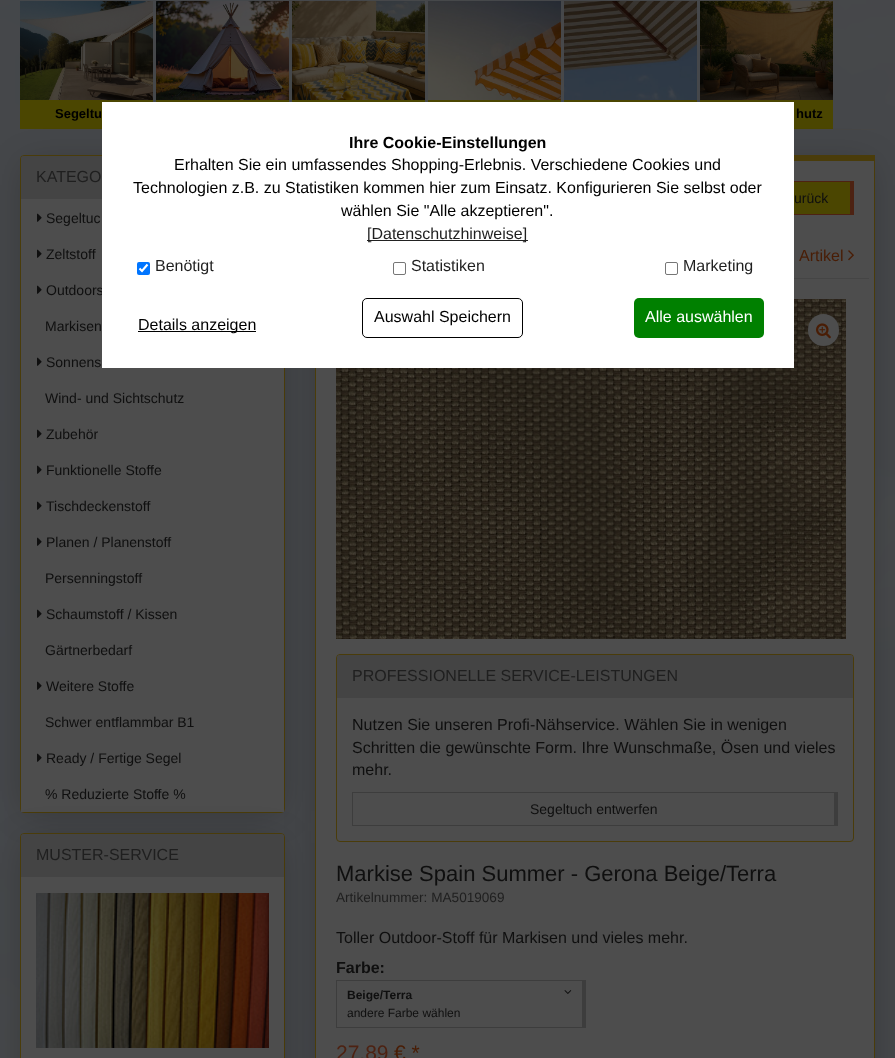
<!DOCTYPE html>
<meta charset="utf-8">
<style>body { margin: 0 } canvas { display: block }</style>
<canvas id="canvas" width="895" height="1058"></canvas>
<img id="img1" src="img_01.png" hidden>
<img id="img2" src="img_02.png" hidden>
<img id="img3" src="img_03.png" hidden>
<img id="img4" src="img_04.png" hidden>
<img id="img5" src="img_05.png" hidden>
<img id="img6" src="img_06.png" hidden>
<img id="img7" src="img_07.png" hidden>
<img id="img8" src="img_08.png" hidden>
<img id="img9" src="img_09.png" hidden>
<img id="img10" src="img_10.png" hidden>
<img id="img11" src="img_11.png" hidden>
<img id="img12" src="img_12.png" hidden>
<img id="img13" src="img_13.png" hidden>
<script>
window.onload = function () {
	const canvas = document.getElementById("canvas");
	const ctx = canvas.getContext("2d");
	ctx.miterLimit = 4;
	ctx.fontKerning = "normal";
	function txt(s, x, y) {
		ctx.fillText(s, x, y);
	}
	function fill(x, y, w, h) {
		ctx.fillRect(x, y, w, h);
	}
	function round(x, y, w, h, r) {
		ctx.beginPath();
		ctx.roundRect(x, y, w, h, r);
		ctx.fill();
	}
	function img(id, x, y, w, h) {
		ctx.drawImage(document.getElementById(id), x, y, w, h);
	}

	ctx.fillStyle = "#FFFFFF";
	fill(0, 0, 895, 1058);
	img("img1", 0, 0, 895, 1058);
	ctx.fillStyle = "#474747";
	fill(20, 129, 855, 1);
	ctx.fillStyle = "#47484A";
	fill(289, 10, 3, 18);
	img("img2", 156, 1, 133, 99);
	ctx.fillStyle = "#4B4601";
	fill(156, 100, 133, 2);
	img("img3", 292, 1, 133, 99);
	fill(292, 100, 133, 2);
	ctx.fillStyle = "#47484A";
	fill(561, 15, 3, 76);
	img("img4", 428, 1, 133, 99);
	ctx.fillStyle = "#4B4601";
	fill(428, 100, 133, 2);
	img("img5", 564, 1, 133, 99);
	fill(564, 100, 133, 2);
	ctx.fillStyle = "#47484A";
	fill(153, 12, 3, 15);
	img("img6", 20, 1, 133, 99);
	ctx.fillStyle = "#4B4601";
	fill(20, 100, 133, 29);
	img("img7", 700, 1, 133, 99);
	fill(700, 100, 133, 29);
	ctx.fillStyle = "rgba(0, 0, 0, 0.23)";
	ctx.filter = "blur(17.5px)";
	ctx.beginPath();
	ctx.rect(26, 165, 253, 646);
	ctx.fill();
	ctx.filter = "none";
	ctx.fillStyle = "#4D4D4D";
	ctx.beginPath();
	ctx.roundRect(20.5, 155.5, 264, 657, 3.5);
	ctx.fill();
	ctx.strokeStyle = "#4A3C0A";
	ctx.stroke();
	ctx.fillStyle = "#444444";
	ctx.beginPath();
	ctx.roundRect(21, 156, 263, 44, [3, 3, 0, 0]);
	ctx.fill();
	ctx.fillStyle = "#4D4D4D";
	fill(21, 199, 81, 1);
	img("img8", 37, 213, 5, 9);
	img("img8", 37, 249, 5, 9);
	img("img8", 37, 285, 5, 9);
	img("img8", 37, 357, 5, 9);
	img("img8", 37, 429, 5, 9);
	img("img8", 37, 465, 5, 9);
	img("img8", 37, 501, 5, 9);
	img("img8", 37, 537, 5, 9);
	img("img8", 37, 609, 5, 9);
	img("img8", 37, 681, 5, 9);
	img("img8", 37, 753, 5, 9);
	fill(21, 809, 263, 3);
	ctx.fillStyle = "rgba(0, 0, 0, 0.23)";
	ctx.filter = "blur(17.5px)";
	ctx.beginPath();
	ctx.rect(26, 843, 253, 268);
	ctx.fill();
	ctx.filter = "none";
	ctx.fillStyle = "#4D4D4D";
	ctx.beginPath();
	ctx.roundRect(20.5, 833.5, 264, 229, 3.5);
	ctx.fill();
	ctx.stroke();
	ctx.fillStyle = "#444444";
	ctx.beginPath();
	ctx.roundRect(21, 834, 263, 44, [3, 3, 0, 0]);
	ctx.fill();
	ctx.fillStyle = "#4D4D4D";
	fill(21, 877, 263, 1);
	img("img9", 36, 893, 233, 155);
	ctx.fillStyle = "rgba(0, 0, 0, 0.23)";
	ctx.filter = "blur(17.5px)";
	ctx.beginPath();
	ctx.rect(321, 165, 548, 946);
	ctx.fill();
	ctx.filter = "none";
	ctx.fillStyle = "#4D4D4D";
	fill(316, 161, 558, 897);
	ctx.fillStyle = "#4A3C0A";
	fill(794, 155, 81, 6);
	fill(874, 155, 1, 903);
	fill(315, 368, 1, 690);
	ctx.fillStyle = "#4B4601";
	fill(794, 182, 56, 32);
	ctx.fillStyle = "#4D2212";
	fill(794, 181, 60, 1);
	fill(850, 181, 4, 34);
	fill(794, 214, 60, 1);
	ctx.fillStyle = "#454545";
	fill(794, 278, 75, 1);
	img("img10", 848, 250, 6, 11);
	img("img11", 336, 299, 510, 340);
	ctx.fillStyle = "#4D4D4D";
	round(808, 314, 31, 32, 15.5);
	img("img12", 816, 323, 15, 16);
	ctx.beginPath();
	ctx.roundRect(336.5, 654.5, 517, 187, 3.5);
	ctx.stroke();
	ctx.fillStyle = "#444444";
	ctx.beginPath();
	ctx.roundRect(337, 655, 516, 44, [3, 3, 0, 0]);
	ctx.fill();
	ctx.fillStyle = "#4D4D4D";
	fill(337, 698, 516, 1);
	ctx.fillStyle = "#3D3D3D";
	fill(352, 792, 486, 1);
	fill(834, 792, 4, 34);
	fill(352, 825, 486, 1);
	fill(352, 792, 1, 34);
	fill(336, 980, 250, 1);
	fill(582, 980, 4, 48);
	fill(336, 1027, 250, 1);
	fill(336, 980, 1, 48);
	img("img13", 564, 990, 8, 4);
	ctx.font = "bold 13px Liberation Sans";
	ctx.fillStyle = "#000000";
	txt("Segeltu", 55, 118);
	txt("hutz", 796, 118);
	ctx.font = "16px Liberation Sans";
	ctx.fillStyle = "#1F1F1F";
	txt("KATEGO", 36, 182);
	ctx.font = "14px Liberation Sans";
	ctx.fillStyle = "#0F0F0F";
	txt("Segeltuc", 46, 223);
	txt("Zeltstoff", 46, 259);
	txt("Outdoors", 46, 295);
	txt("Markisen", 45, 331);
	txt("Sonnens", 46, 367);
	txt("Wind- und Sichtschutz", 45, 403);
	txt("Zubehör", 46, 439);
	txt("Funktionelle Stoffe", 46, 475);
	txt("Tischdeckenstoff", 46, 511);
	txt("Planen / Planenstoff", 46, 547);
	txt("Persenningstoff", 45, 583);
	txt("Schaumstoff / Kissen", 46, 619);
	txt("Gärtnerbedarf", 45, 655);
	txt("Weitere Stoffe", 46, 691);
	txt("Schwer entflammbar B1", 45, 727);
	txt("Ready / Fertige Segel", 46, 763);
	txt("% Reduzierte Stoffe %", 45, 799);
	ctx.font = "16px Liberation Sans";
	ctx.fillStyle = "#1F1F1F";
	txt("MUSTER-SERVICE", 36, 860);
	ctx.font = "14px Liberation Sans";
	ctx.fillStyle = "#0F0F0F";
	txt("urück", 794, 203);
	ctx.font = "16px Liberation Sans";
	ctx.fillStyle = "#491D05";
	txt("Artikel", 799, 261);
	ctx.fillStyle = "#1F1F1F";
	txt("PROFESSIONELLE SERVICE-LEISTUNGEN", 352, 681);
	ctx.fillStyle = "#0F0F0F";
	txt("Nutzen Sie unseren Profi-Nähservice. Wählen Sie in wenigen", 352, 730);
	txt("Schritten die gewünschte Form. Ihre Wunschmaße, Ösen und vieles", 352, 753);
	txt("mehr.", 352, 775);
	ctx.font = "14px Liberation Sans";
	txt("Segeltuch entwerfen", 530, 814);
	ctx.font = "22px Liberation Sans";
	txt("Markise Spain Summer - Gerona Beige/Terra", 336, 881);
	ctx.font = "13.6px Liberation Sans";
	ctx.fillStyle = "#1F1F1F";
	txt("Artikelnummer: MA5019069", 336, 902);
	ctx.font = "16px Liberation Sans";
	ctx.fillStyle = "#0F0F0F";
	txt("Toller Outdoor-Stoff für Markisen und vieles mehr.", 336, 943);
	ctx.font = "bold 16px Liberation Sans";
	txt("Farbe:", 336, 973);
	ctx.font = "bold 12px Liberation Sans";
	txt("Beige/Terra", 347, 999);
	ctx.font = "12px Liberation Sans";
	txt("andere Farbe wählen", 347, 1017);
	ctx.font = "21px Liberation Sans";
	ctx.fillStyle = "#4D2212";
	txt("27,89", 336, 1060);
	ctx.fillStyle = "#491D05";
	txt("€ *", 394, 1060);
	ctx.fillStyle = "#FFFFFF";
	fill(102, 102, 692, 266);
	ctx.font = "bold 16px Liberation Sans";
	ctx.fillStyle = "#000000";
	txt("Ihre Cookie-Einstellungen", 349, 148);
	ctx.font = "16px Liberation Sans";
	txt("Erhalten Sie ein umfassendes Shopping-Erlebnis. Verschiedene Cookies und", 174, 170);
	txt("Technologien z.B. zu Statistiken kommen hier zum Einsatz. Konfigurieren Sie selbst oder", 133, 193);
	txt("wählen Sie \"Alle akzeptieren\".", 341, 216);
	ctx.fillStyle = "#222222";
	fill(367, 240, 161, 1);
	ctx.fillStyle = "#1F1F1F";
	txt("[Datenschutzhinweise]", 367, 239);
	ctx.fillStyle = "#0075FF";
	round(137, 262, 13, 13, 2);
	ctx.beginPath();
	ctx.moveTo(139.5, 268.5);
	ctx.lineTo(142, 271);
	ctx.lineTo(147.5, 264.5);
	ctx.strokeStyle = "#FFFFFF";
	ctx.lineWidth = 2.1;
	ctx.stroke();
	ctx.fillStyle = "#1F1F1F";
	txt("Benötigt", 155, 271);
	ctx.beginPath();
	ctx.roundRect(393.5, 262.5, 12, 12, 1.5);
	ctx.strokeStyle = "#767676";
	ctx.lineWidth = 1;
	ctx.stroke();
	txt("Statistiken", 411, 271);
	ctx.beginPath();
	ctx.roundRect(665.5, 262.5, 12, 12, 1.5);
	ctx.stroke();
	txt("Marketing", 683, 271);
	ctx.beginPath();
	ctx.roundRect(362.5, 298.5, 160, 39, 4.5);
	ctx.strokeStyle = "#000000";
	ctx.stroke();
	ctx.fillStyle = "#000000";
	txt("Auswahl Speichern", 374, 322);
	ctx.fillStyle = "#008000";
	round(634, 298, 130, 40, 5);
	ctx.fillStyle = "#FFFFFF";
	txt("Alle auswählen", 645, 322);
	ctx.fillStyle = "#000000";
	fill(138, 331, 118, 1);
	txt("Details anzeigen", 138, 330);
};
</script>
